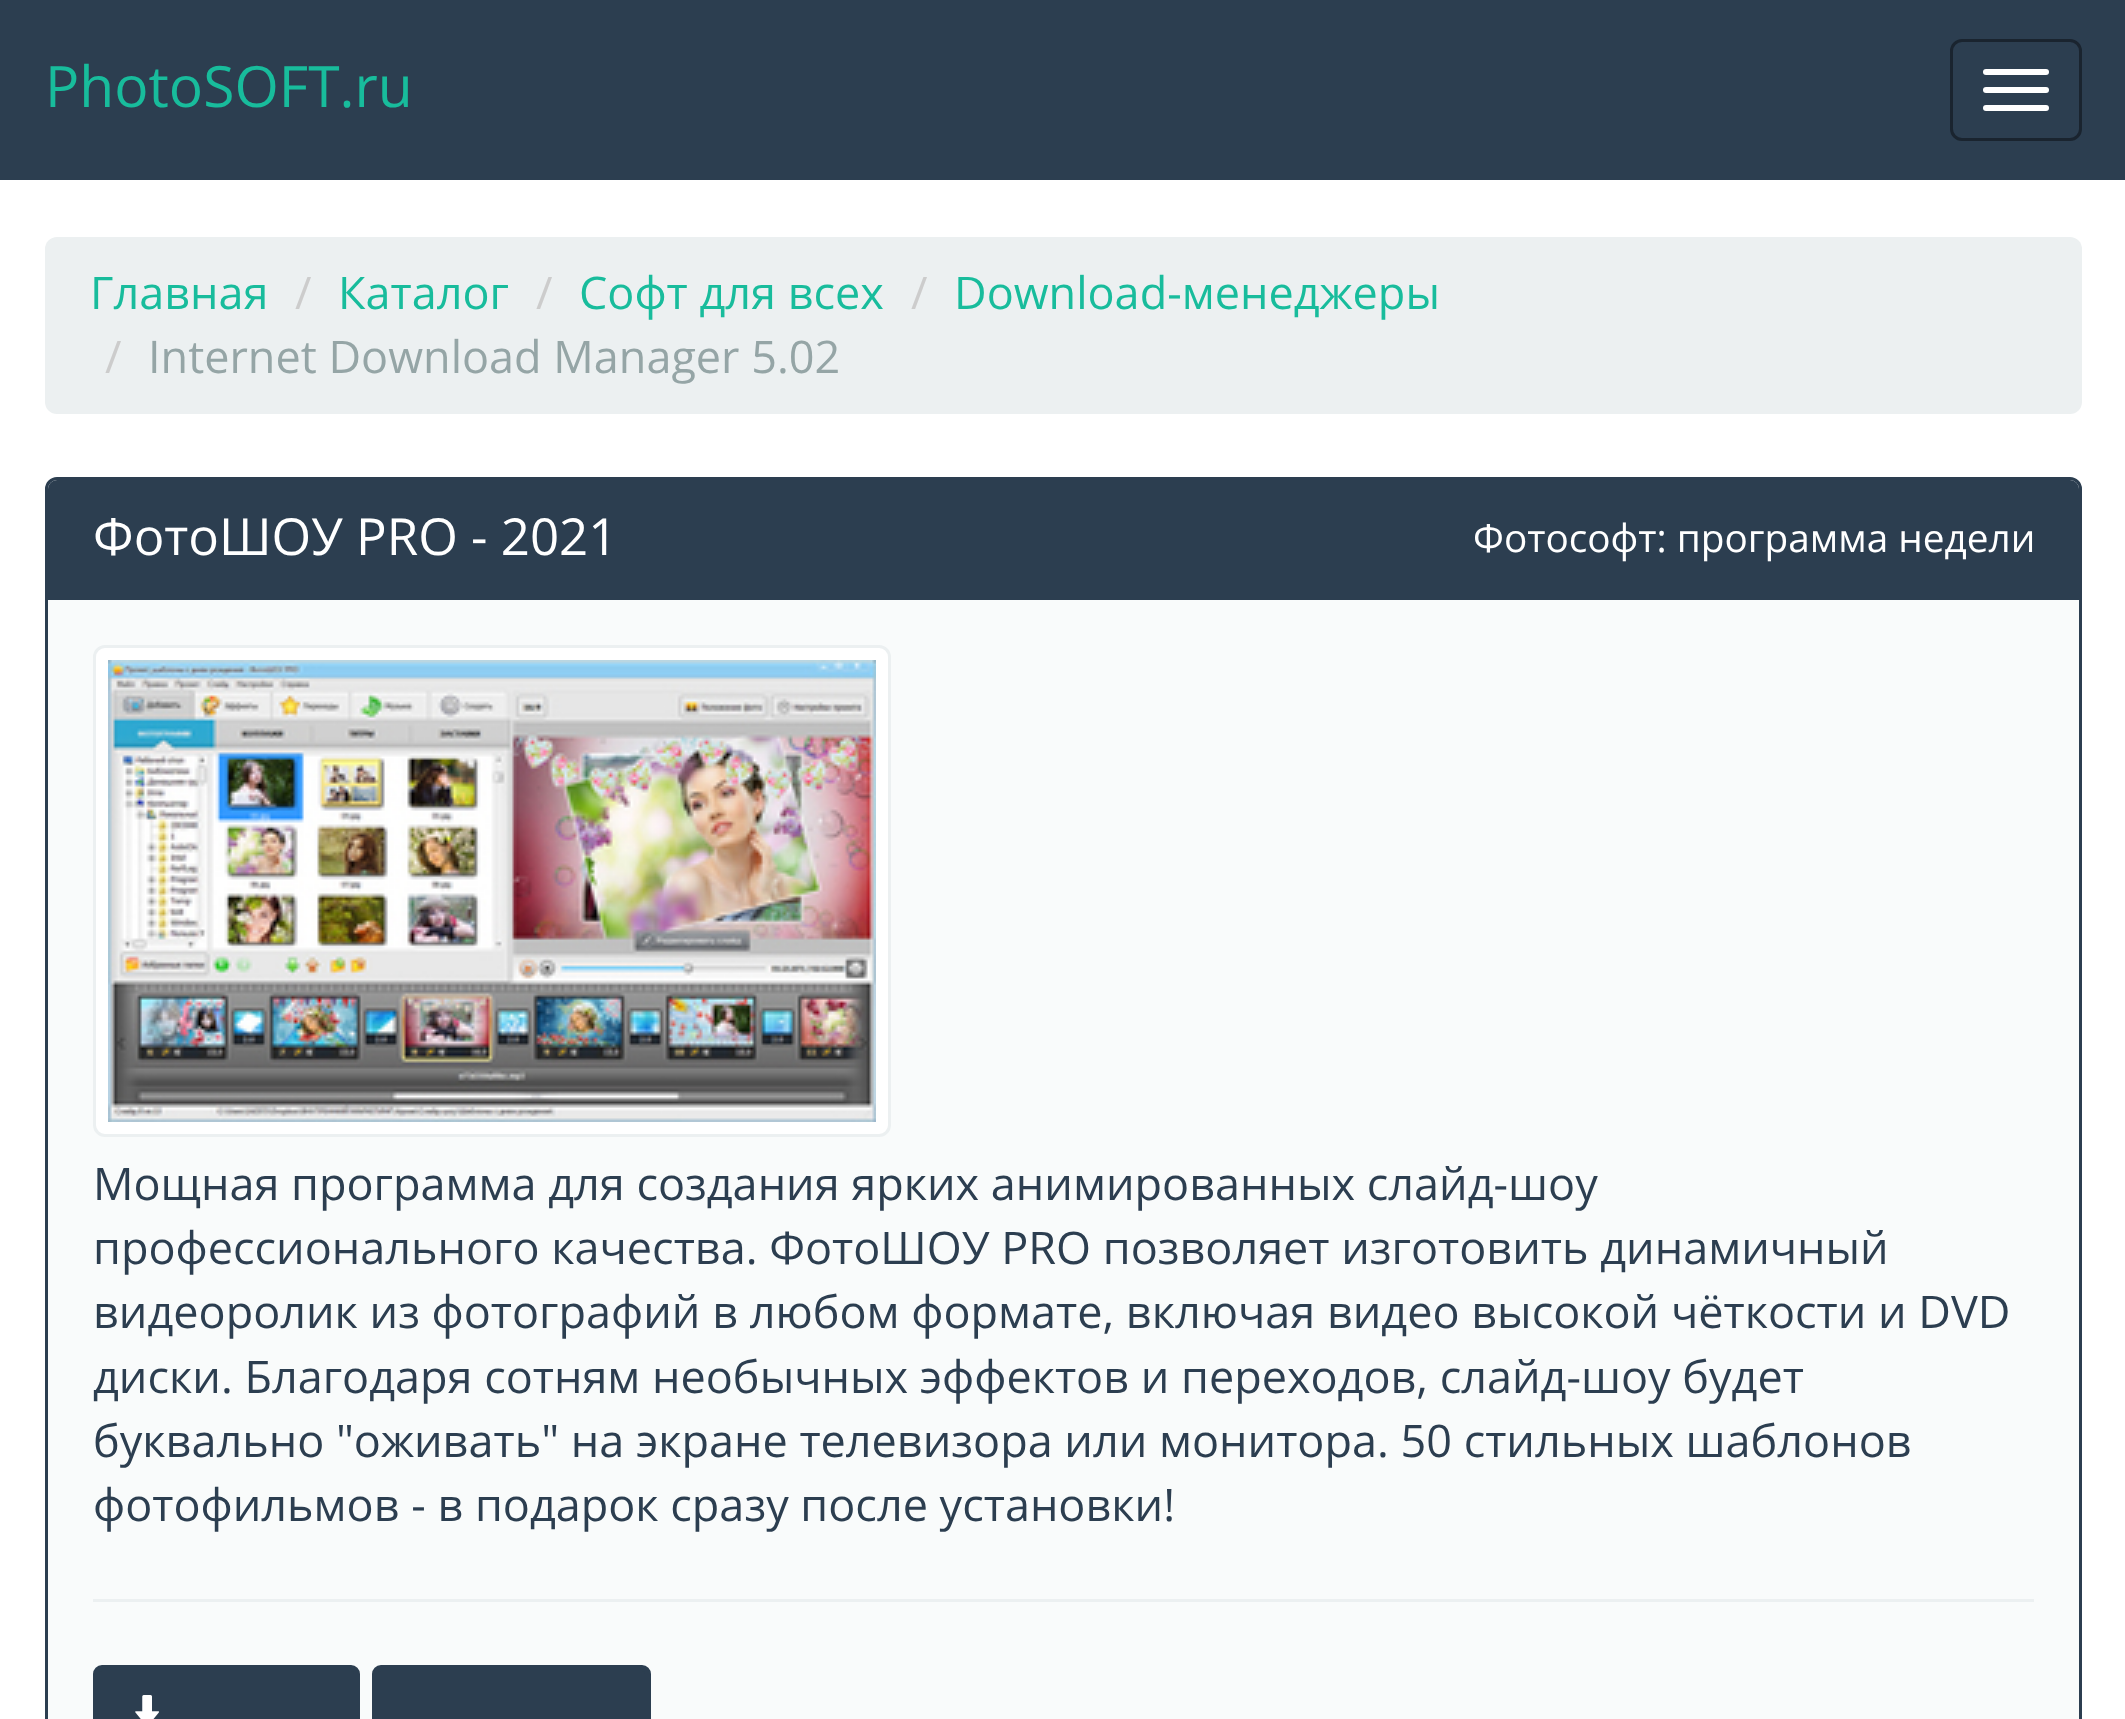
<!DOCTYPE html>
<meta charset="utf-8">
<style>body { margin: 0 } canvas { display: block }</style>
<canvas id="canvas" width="2125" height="1719"></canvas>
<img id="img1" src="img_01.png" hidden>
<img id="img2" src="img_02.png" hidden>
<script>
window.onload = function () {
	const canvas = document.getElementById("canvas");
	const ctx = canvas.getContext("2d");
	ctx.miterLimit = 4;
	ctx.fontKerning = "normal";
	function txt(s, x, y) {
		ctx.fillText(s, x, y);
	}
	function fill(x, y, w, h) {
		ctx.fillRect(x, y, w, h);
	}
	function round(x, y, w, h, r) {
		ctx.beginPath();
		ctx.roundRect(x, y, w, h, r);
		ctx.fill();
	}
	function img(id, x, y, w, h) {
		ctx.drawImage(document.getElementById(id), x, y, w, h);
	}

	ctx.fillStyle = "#FFFFFF";
	fill(0, 0, 2125, 1719);
	ctx.fillStyle = "#2C3E50";
	fill(0, 0, 2125, 180);
	ctx.beginPath();
	ctx.roundRect(1951.5, 40.5, 129, 99, 10.5);
	ctx.strokeStyle = "#1A242F";
	ctx.lineWidth = 3;
	ctx.stroke();
	ctx.fillStyle = "#FFFFFF";
	round(1983, 69, 66, 6, 3);
	round(1983, 87, 66, 6, 3);
	round(1983, 105, 66, 6, 3);
	ctx.fillStyle = "#ECF0F1";
	round(45, 237, 2037, 177, 12);
	ctx.fillStyle = "#F9FBFB";
	ctx.beginPath();
	ctx.roundRect(46.5, 478.5, 2034, 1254, 10.5);
	ctx.fill();
	ctx.strokeStyle = "#2C3E50";
	ctx.stroke();
	ctx.fillStyle = "#2C3E50";
	ctx.beginPath();
	ctx.roundRect(48, 480, 2031, 120, [9, 9, 0, 0]);
	ctx.fill();
	ctx.fillStyle = "#FFFFFF";
	ctx.beginPath();
	ctx.roundRect(94.5, 646.5, 795, 489, 10.5);
	ctx.fill();
	ctx.strokeStyle = "#ECF0F1";
	ctx.stroke();
	img("img1", 108, 660, 768, 462);
	ctx.fillStyle = "#ECF0F1";
	fill(93, 1599, 1941, 3);
	ctx.fillStyle = "#2C3E50";
	ctx.beginPath();
	ctx.roundRect(96, 1668, 261, 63, 6);
	ctx.fill();
	ctx.strokeStyle = "#2C3E50";
	ctx.lineWidth = 6;
	ctx.stroke();
	img("img2", 135, 1695, 24, 24);
	ctx.beginPath();
	ctx.roundRect(375, 1668, 273, 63, 6);
	ctx.fill();
	ctx.stroke();
	ctx.font = "57px Open Sans";
	ctx.fillStyle = "#18BC9C";
	txt("PhotoSOFT.ru", 45, 107);
	ctx.font = "45px Open Sans";
	txt("Главная", 90, 309);
	ctx.fillStyle = "#CCCCCC";
	txt("/", 295, 309);
	ctx.fillStyle = "#18BC9C";
	txt("Каталог", 338, 309);
	ctx.fillStyle = "#CCCCCC";
	txt("/", 536, 309);
	ctx.fillStyle = "#18BC9C";
	txt("Софт для всех", 579, 309);
	ctx.fillStyle = "#CCCCCC";
	txt("/", 911, 309);
	ctx.fillStyle = "#18BC9C";
	txt("Download-менеджеры", 954, 309);
	ctx.fillStyle = "#CCCCCC";
	txt("/", 105, 373);
	ctx.fillStyle = "#95A5A6";
	txt("Internet Download Manager 5.02", 148, 373);
	ctx.font = "51px Open Sans";
	ctx.fillStyle = "#FFFFFF";
	txt("ФотоШОУ PRO - 2021", 93, 555);
	ctx.font = "38.75px Open Sans";
	txt("Фотософт: программа недели", 1473, 552);
	ctx.font = "45px Open Sans";
	ctx.fillStyle = "#2C3E50";
	txt("Мощная программа для создания ярких анимированных слайд-шоу", 93, 1200);
	txt("профессионального качества. ФотоШОУ PRO позволяет изготовить динамичный", 93, 1264);
	txt("видеоролик из фотографий в любом формате, включая видео высокой чёткости и DVD", 93, 1328);
	txt("диски. Благодаря сотням необычных эффектов и переходов, слайд-шоу будет", 93, 1393);
	txt("буквально \"оживать\" на экране телевизора или монитора. 50 стильных шаблонов", 93, 1457);
	txt("фотофильмов - в подарок сразу после установки!", 93, 1521);
};
</script>
